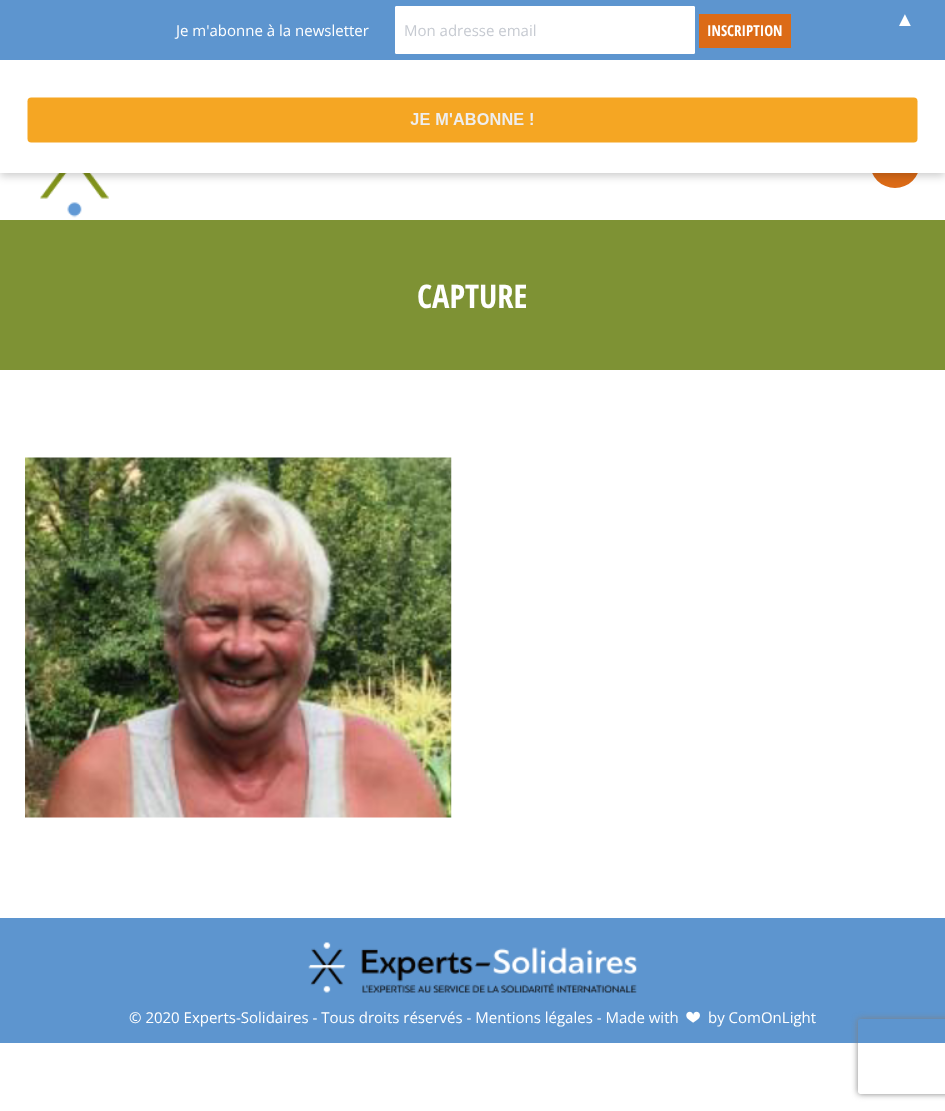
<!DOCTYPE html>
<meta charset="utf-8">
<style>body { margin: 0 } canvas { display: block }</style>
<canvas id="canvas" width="945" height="1111"></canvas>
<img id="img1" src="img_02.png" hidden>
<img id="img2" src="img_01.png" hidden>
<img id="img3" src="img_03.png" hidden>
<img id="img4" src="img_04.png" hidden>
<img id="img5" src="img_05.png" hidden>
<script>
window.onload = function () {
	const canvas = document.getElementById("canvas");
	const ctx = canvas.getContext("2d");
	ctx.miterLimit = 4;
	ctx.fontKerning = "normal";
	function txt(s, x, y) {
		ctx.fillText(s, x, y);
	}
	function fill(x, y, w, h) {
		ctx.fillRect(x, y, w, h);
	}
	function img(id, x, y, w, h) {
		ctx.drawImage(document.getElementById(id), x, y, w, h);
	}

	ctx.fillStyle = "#FFFFFF";
	fill(0, 0, 945, 1111);
	ctx.fillStyle = "#DC6B17";
	ctx.beginPath();
	ctx.arc(895, 163, 25, 0, Math.PI * 2);
	ctx.fill();
	img("img1", 40, 173, 69, 45);
	ctx.fillStyle = "rgba(0, 0, 0, 0.2)";
	ctx.filter = "blur(4px)";
	ctx.beginPath();
	ctx.rect(0, 4, 945, 172);
	ctx.fill();
	ctx.filter = "none";
	ctx.fillStyle = "#FFFFFF";
	fill(0, 60, 945, 113);
	img("img2", 27, 60, 900, 83);
	ctx.fillStyle = "#5D95CF";
	fill(0, 0, 945, 60);
	ctx.fillStyle = "#FFFFFF";
	ctx.beginPath();
	ctx.roundRect(395.5, 6.5, 299, 47, 0.5);
	ctx.fill();
	ctx.strokeStyle = "#FFFFFF";
	ctx.stroke();
	ctx.fillStyle = "#DC6B17";
	fill(699, 14, 92, 34);
	ctx.fillStyle = "#7E9234";
	fill(0, 220, 945, 150);
	img("img3", 25, 457, 427, 361);
	ctx.fillStyle = "#5D95CF";
	fill(0, 918, 945, 125);
	img("img4", 308, 942, 329, 51);
	img("img5", 686, 1011, 14, 12);
	ctx.save();
	ctx.beginPath();
	ctx.moveTo(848, 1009);
	ctx.lineTo(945, 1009);
	ctx.lineTo(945, 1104);
	ctx.lineTo(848, 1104);
	ctx.closePath();
	ctx.moveTo(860.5, 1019);
	ctx.lineTo(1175.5, 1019);
	ctx.bezierCurveTo(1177, 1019, 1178, 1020, 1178, 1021.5);
	ctx.lineTo(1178, 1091.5);
	ctx.bezierCurveTo(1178, 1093, 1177, 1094, 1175.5, 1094);
	ctx.lineTo(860.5, 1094);
	ctx.bezierCurveTo(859, 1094, 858, 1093, 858, 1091.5);
	ctx.lineTo(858, 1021.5);
	ctx.bezierCurveTo(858, 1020, 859, 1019, 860.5, 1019);
	ctx.closePath();
	ctx.clip("evenodd");
	ctx.fillStyle = "#808080";
	ctx.filter = "blur(3px)";
	ctx.beginPath();
	ctx.roundRect(858, 1019, 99, 75, 2.5);
	ctx.fill();
	ctx.filter = "none";
	ctx.restore();
	ctx.font = "20px Liberation Sans";
	ctx.fillStyle = "#FFFFFF";
	txt("▲", 895, 26);
	ctx.font = "15px Open Sans";
	txt("Je m'abonne à la newsletter", 176, 36);
	ctx.fillStyle = "#C6CAD1";
	txt("Mon adresse email", 404, 36);
	ctx.font = "bold 15px Open Sans Condensed";
	ctx.fillStyle = "#FFFFFF";
	txt("INSCRIPTION", 707, 36);
	ctx.font = "bold 32.5px Open Sans Condensed";
	txt("CAPTURE", 417, 308);
	ctx.font = "15px Open Sans";
	txt("© 2020 Experts-Solidaires - Tous droits réservés - Mentions légales - Made with", 129, 1023);
	txt("by ComOnLight", 708, 1023);
};
</script>
